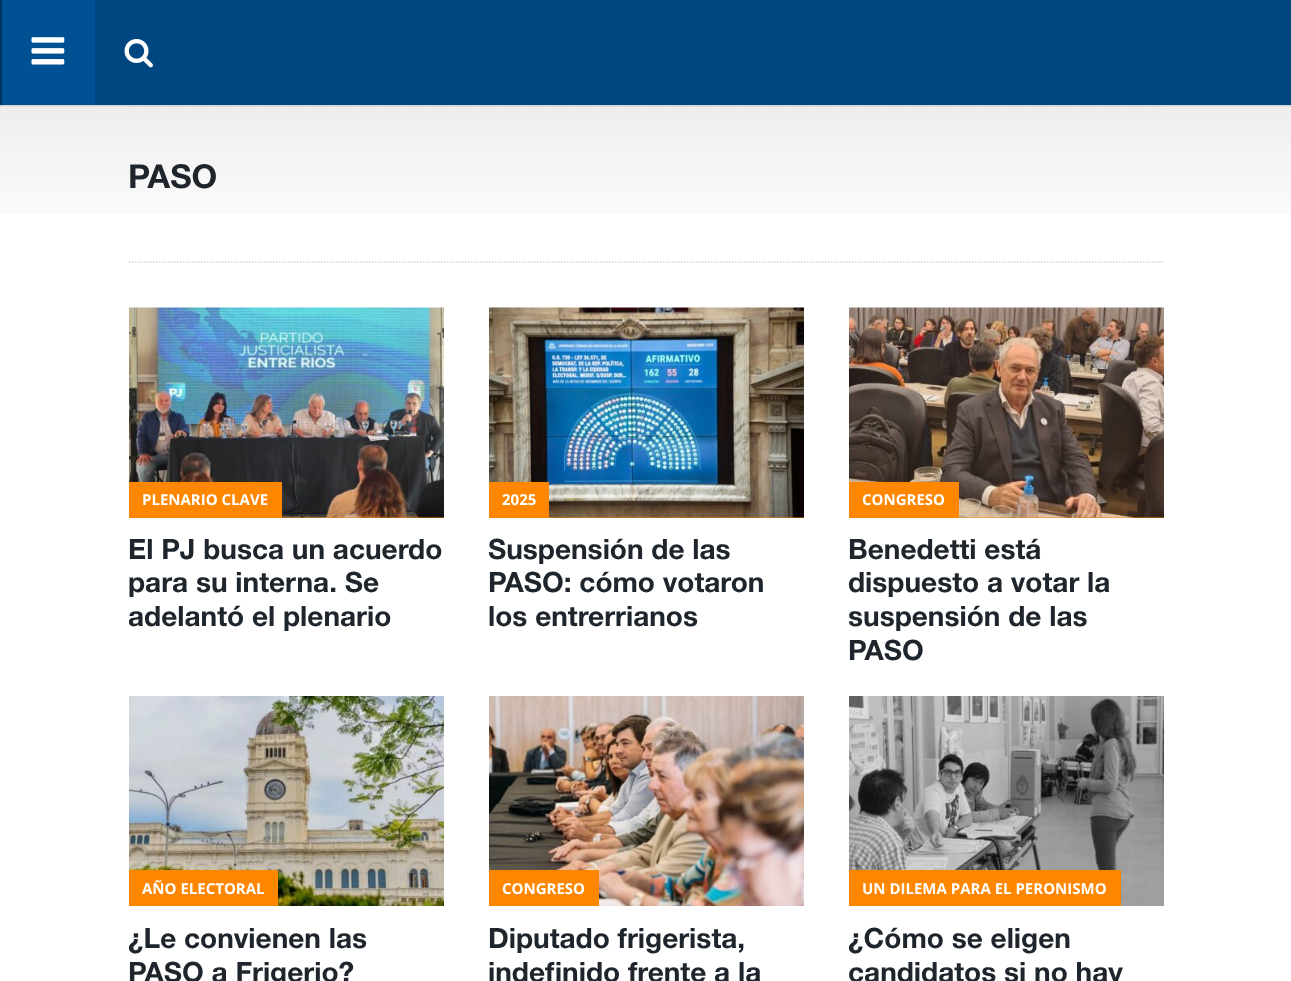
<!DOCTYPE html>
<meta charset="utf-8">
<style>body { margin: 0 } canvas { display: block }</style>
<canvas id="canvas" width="1291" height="981"></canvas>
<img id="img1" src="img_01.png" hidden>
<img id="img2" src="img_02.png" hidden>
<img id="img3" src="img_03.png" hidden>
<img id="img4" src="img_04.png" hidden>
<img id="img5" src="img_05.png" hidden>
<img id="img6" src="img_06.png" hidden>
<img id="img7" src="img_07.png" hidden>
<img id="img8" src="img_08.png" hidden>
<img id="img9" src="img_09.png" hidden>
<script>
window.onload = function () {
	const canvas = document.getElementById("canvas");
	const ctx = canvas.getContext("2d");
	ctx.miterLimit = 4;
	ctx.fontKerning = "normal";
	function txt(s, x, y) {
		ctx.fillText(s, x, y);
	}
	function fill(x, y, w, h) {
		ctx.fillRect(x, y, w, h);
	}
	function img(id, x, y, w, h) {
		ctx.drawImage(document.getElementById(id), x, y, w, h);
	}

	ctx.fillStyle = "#FFFFFF";
	fill(0, 0, 1291, 981);
	ctx.fillStyle = "#004680";
	fill(95, 0, 1196, 105);
	ctx.fillStyle = "#005193";
	fill(2, 0, 93, 105);
	ctx.fillStyle = "#00325B";
	fill(0, 0, 2, 105);
	img("img1", 31, 37, 34, 28);
	img("img2", 124, 39, 29, 29);
	img("img3", 0, 105, 1291, 109);
	ctx.beginPath();
	ctx.moveTo(129, 106);
	ctx.lineTo(1164, 106);
	ctx.strokeStyle = "#D5D5D5";
	ctx.lineWidth = 1.5;
	ctx.setLineDash([1.5, 1.5]);
	ctx.stroke();
	ctx.beginPath();
	ctx.moveTo(129, 262);
	ctx.lineTo(1164, 262);
	ctx.stroke();
	ctx.fillStyle = "#FF8700";
	fill(282, 517, 162, 1);
	img("img4", 129, 307, 315, 211);
	fill(129, 482, 153, 36);
	fill(549, 517, 255, 1);
	img("img5", 489, 307, 315, 211);
	fill(489, 482, 60, 36);
	fill(959, 517, 205, 1);
	img("img6", 849, 307, 315, 211);
	fill(849, 482, 110, 36);
	img("img7", 129, 696, 315, 210);
	fill(129, 870, 149, 36);
	img("img8", 489, 696, 315, 210);
	fill(489, 870, 110, 36);
	img("img9", 849, 696, 315, 210);
	fill(849, 870, 272, 36);
	ctx.font = "bold 33px Helvetica Neue";
	ctx.fillStyle = "#1E252C";
	txt("PASO", 128, 188);
	ctx.font = "bold 15px Open Sans";
	ctx.fillStyle = "#FFFFFF";
	txt("PLENARIO CLAVE", 142, 505);
	ctx.font = "bold 28px Helvetica Neue";
	ctx.fillStyle = "#1E252C";
	txt("El PJ busca un acuerdo", 128, 559);
	txt("para su interna. Se", 128, 592);
	txt("adelantó el plenario", 128, 626);
	ctx.font = "bold 15px Open Sans";
	ctx.fillStyle = "#FFFFFF";
	txt("2025", 502, 505);
	ctx.font = "bold 28px Helvetica Neue";
	ctx.fillStyle = "#1E252C";
	txt("Suspensión de las", 488, 559);
	txt("PASO: cómo votaron", 488, 592);
	txt("los entrerrianos", 488, 626);
	ctx.font = "bold 15px Open Sans";
	ctx.fillStyle = "#FFFFFF";
	txt("CONGRESO", 862, 505);
	ctx.font = "bold 28px Helvetica Neue";
	ctx.fillStyle = "#1E252C";
	txt("Benedetti está", 848, 559);
	txt("dispuesto a votar la", 848, 592);
	txt("suspensión de las", 848, 626);
	txt("PASO", 848, 660);
	ctx.font = "bold 15px Open Sans";
	ctx.fillStyle = "#FFFFFF";
	txt("AÑO ELECTORAL", 142, 894);
	ctx.font = "bold 28px Helvetica Neue";
	ctx.fillStyle = "#1E252C";
	txt("¿Le convienen las", 128, 948);
	txt("PASO a Frigerio?", 128, 982);
	ctx.font = "bold 15px Open Sans";
	ctx.fillStyle = "#FFFFFF";
	txt("CONGRESO", 502, 894);
	ctx.font = "bold 28px Helvetica Neue";
	ctx.fillStyle = "#1E252C";
	txt("Diputado frigerista,", 488, 948);
	txt("indefinido frente a la", 488, 982);
	ctx.font = "bold 15px Open Sans";
	ctx.fillStyle = "#FFFFFF";
	txt("UN DILEMA PARA EL PERONISMO", 862, 894);
	ctx.font = "bold 28px Helvetica Neue";
	ctx.fillStyle = "#1E252C";
	txt("¿Cómo se eligen", 848, 948);
	txt("candidatos si no hay", 848, 982);
};
</script>
